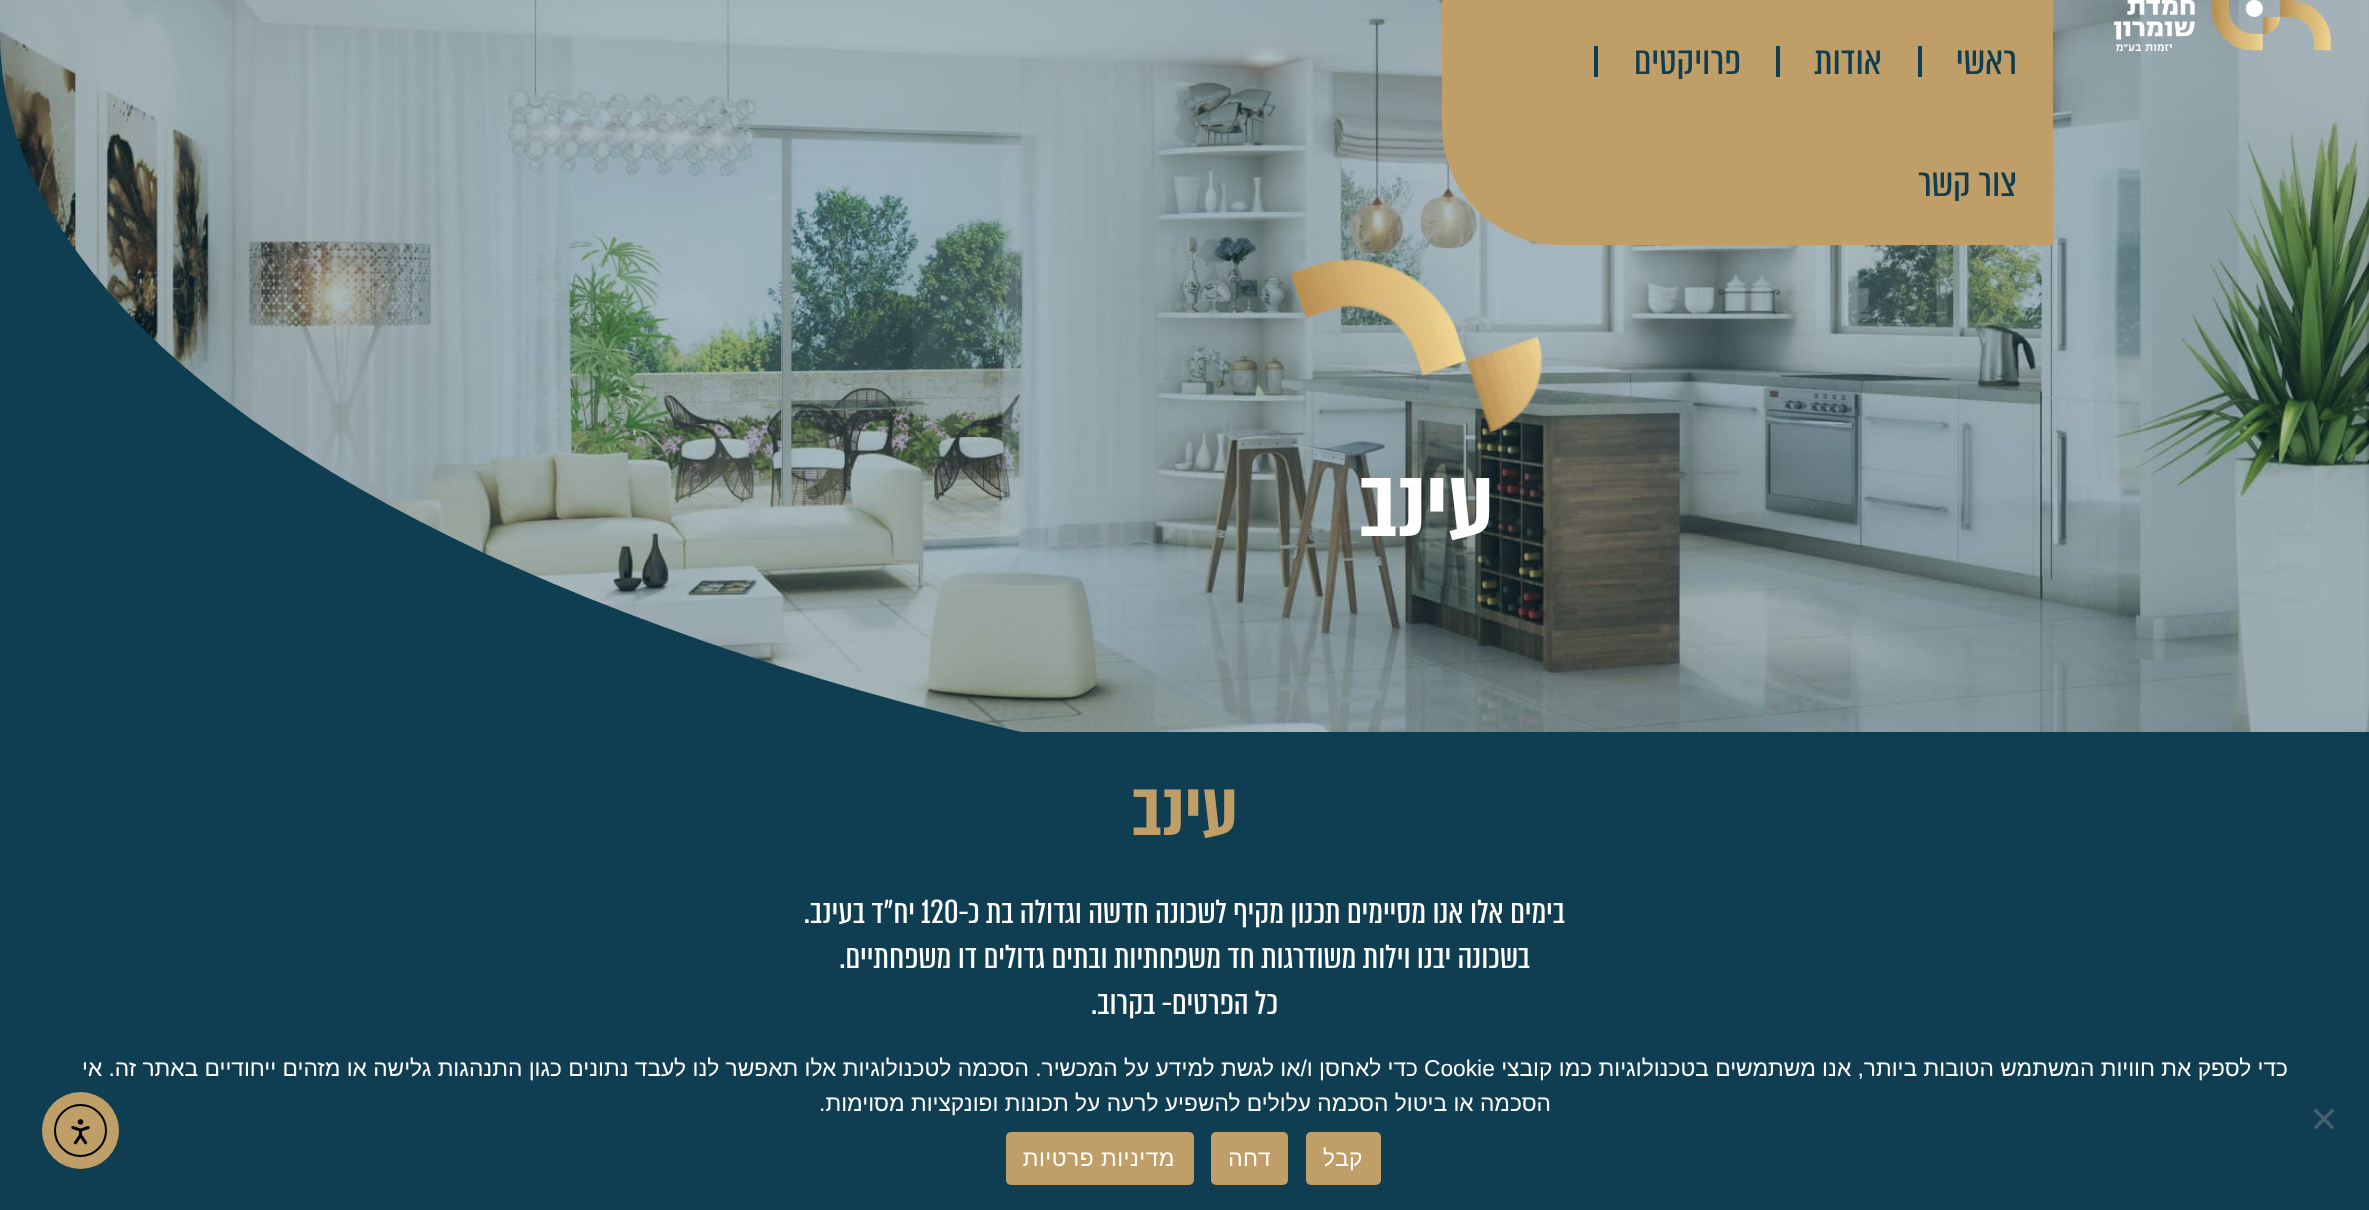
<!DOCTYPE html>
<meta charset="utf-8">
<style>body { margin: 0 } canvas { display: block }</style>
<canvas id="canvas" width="2369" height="1210"></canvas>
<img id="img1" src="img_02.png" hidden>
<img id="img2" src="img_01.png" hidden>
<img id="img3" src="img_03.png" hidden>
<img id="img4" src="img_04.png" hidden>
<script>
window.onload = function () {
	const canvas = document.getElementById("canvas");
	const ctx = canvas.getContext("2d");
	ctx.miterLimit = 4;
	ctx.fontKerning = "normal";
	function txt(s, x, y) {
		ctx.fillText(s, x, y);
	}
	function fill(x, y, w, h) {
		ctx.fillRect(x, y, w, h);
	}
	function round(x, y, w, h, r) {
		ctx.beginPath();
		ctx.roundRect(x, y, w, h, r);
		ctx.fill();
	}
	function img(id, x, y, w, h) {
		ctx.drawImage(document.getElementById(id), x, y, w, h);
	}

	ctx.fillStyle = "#0F3E52";
	fill(0, 0, 2369, 1210);
	img("img1", 0, 0, 2369, 732);
	ctx.fillStyle = "rgba(15, 62, 82, 0.35)";
	ctx.beginPath();
	ctx.moveTo(0, -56);
	ctx.lineTo(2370, -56);
	ctx.lineTo(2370, 852);
	ctx.lineTo(2133, 852);
	ctx.bezierCurveTo(955, 852, 0, 486, 0, 35);
	ctx.closePath();
	ctx.fill();
	img("img2", 2114, 0, 217, 51);
	ctx.fillStyle = "#C09E67";
	ctx.beginPath();
	ctx.roundRect(1442, 0, 611, 245, [0, 0, 0, 119]);
	ctx.fill();
	ctx.fillStyle = "#0F3E52";
	fill(1918, 46, 4, 31);
	fill(1776, 46, 4, 31);
	fill(1594, 46, 4, 31);
	img("img3", 1291, 258, 252, 174);
	ctx.fillStyle = "#485F69";
	ctx.beginPath();
	ctx.moveTo(2332, 1108.5);
	ctx.lineTo(2334.5, 1111);
	ctx.lineTo(2316, 1129.5);
	ctx.lineTo(2313.5, 1127);
	ctx.closePath();
	ctx.fill();
	ctx.beginPath();
	ctx.moveTo(2313.5, 1111);
	ctx.lineTo(2316, 1108.5);
	ctx.lineTo(2334.5, 1127);
	ctx.lineTo(2332, 1129.5);
	ctx.closePath();
	ctx.fill();
	ctx.fillStyle = "#C09E67";
	round(1306, 1132, 75, 53, 5);
	round(1211, 1132, 77, 53, 5);
	round(1006, 1132, 188, 53, 5);
	ctx.beginPath();
	ctx.arc(80.5, 1130.5, 38.5, 0, Math.PI * 2);
	ctx.fill();
	ctx.beginPath();
	ctx.arc(80.5, 1130.5, 25.5, 0, Math.PI * 2);
	ctx.strokeStyle = "#000000";
	ctx.lineWidth = 2;
	ctx.stroke();
	img("img4", 71, 1119, 19, 26);
	ctx.direction = "rtl";
	ctx.font = "45.5px 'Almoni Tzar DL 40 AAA'";
	ctx.fillStyle = "#0F3E52";
	txt("ראשי", 2017, 74);
	txt("אודות", 1882, 74);
	txt("פרויקטים", 1741, 74);
	txt("צור קשר", 2017, 196);
	ctx.font = "600 112px 'Almoni Tzar DL 40 AAA'";
	ctx.fillStyle = "#FFFFFF";
	txt("עינב", 1494, 536);
	ctx.font = "600 88px 'Almoni Tzar DL 40 AAA'";
	ctx.fillStyle = "#C09E67";
	txt("עינב", 1238, 835);
	ctx.font = "38.5px 'Almoni Tzar DL 40 AAA'";
	ctx.fillStyle = "#FFFFFF";
	txt("בימים אלו אנו מסיימים תכנון מקיף לשכונה חדשה וגדולה בת כ-", 1565, 923);
	ctx.direction = "ltr";
	txt("120", 921, 923);
	ctx.direction = "rtl";
	txt("יח\"ד בעינב.", 915, 923);
	txt("בשכונה יבנו וילות משודרגות חד משפחתיות ובתים גדולים דו משפחתיים.", 1530, 968);
	txt("כל הפרטים- בקרוב.", 1278, 1014);
	ctx.font = "22.75px Liberation Sans";
	txt("כדי לספק את חוויות המשתמש הטובות ביותר, אנו משתמשים בטכנולוגיות כמו קובצי", 2288, 1076);
	ctx.direction = "ltr";
	txt("Cookie", 1424, 1076);
	ctx.direction = "rtl";
	txt("כדי לאחסן ו/או לגשת למידע על המכשיר. הסכמה לטכנולוגיות אלו תאפשר לנו לעבד נתונים כגון התנהגות גלישה או מזהים ייחודיים באתר זה. אי", 1418, 1076);
	txt("הסכמה או ביטול הסכמה עלולים להשפיע לרעה על תכונות ופונקציות מסוימות.", 1551, 1111);
	ctx.letterSpacing = "0.5px";
	txt("קבל", 1363, 1166);
	txt("דחה", 1271, 1166);
	txt("מדיניות פרטיות", 1175, 1166);
};
</script>
